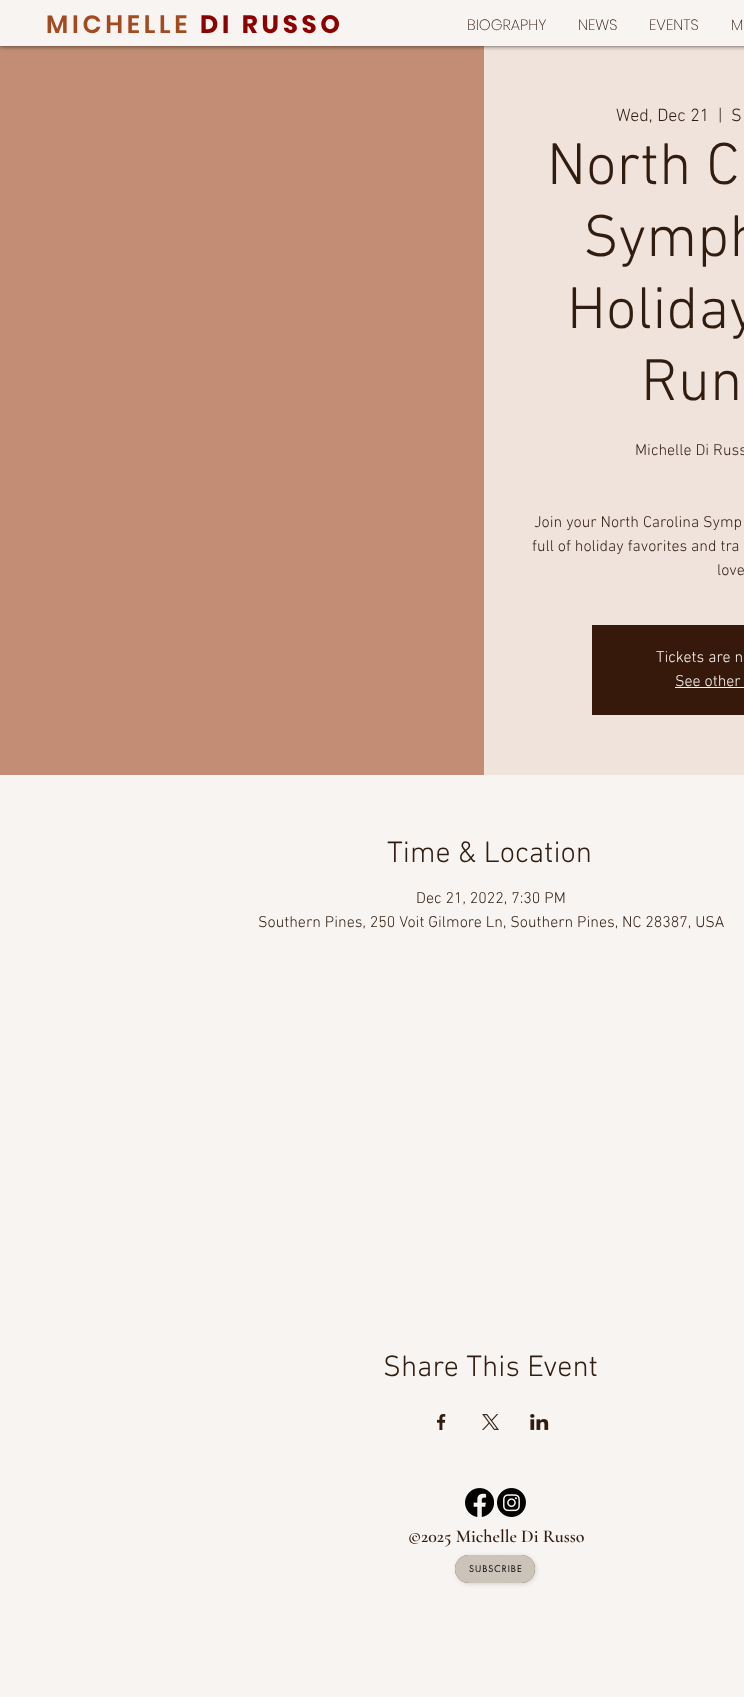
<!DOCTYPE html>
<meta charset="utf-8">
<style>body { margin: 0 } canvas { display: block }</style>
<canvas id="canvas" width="744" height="1697"></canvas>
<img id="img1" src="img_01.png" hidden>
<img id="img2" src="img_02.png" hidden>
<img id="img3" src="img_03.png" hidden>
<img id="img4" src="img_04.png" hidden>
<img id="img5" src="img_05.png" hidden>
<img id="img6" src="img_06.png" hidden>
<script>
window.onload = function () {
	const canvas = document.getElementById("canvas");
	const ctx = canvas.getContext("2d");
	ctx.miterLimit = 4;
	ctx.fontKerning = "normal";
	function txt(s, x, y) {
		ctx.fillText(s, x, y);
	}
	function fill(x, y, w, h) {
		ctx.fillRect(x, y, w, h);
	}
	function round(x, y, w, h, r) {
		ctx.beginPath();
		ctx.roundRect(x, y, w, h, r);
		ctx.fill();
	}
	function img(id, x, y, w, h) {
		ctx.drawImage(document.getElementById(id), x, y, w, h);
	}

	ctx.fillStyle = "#F8F4F1";
	fill(0, 0, 744, 1697);
	ctx.fillStyle = "#C28D74";
	fill(0, 46, 484, 729);
	ctx.fillStyle = "#F0E3DC";
	fill(484, 46, 260, 729);
	ctx.save();
	ctx.beginPath();
	ctx.rect(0, 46, 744, 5);
	ctx.clip();
	ctx.fillStyle = "rgba(0, 0, 0, 0.7)";
	ctx.filter = "blur(2.5px)";
	ctx.beginPath();
	ctx.rect(0, 0, 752, 46);
	ctx.fill();
	ctx.filter = "none";
	ctx.restore();
	ctx.fillStyle = "#36190B";
	fill(592, 625, 152, 90);
	ctx.fillStyle = "#F8F4F1";
	fill(675, 687, 69, 1);
	img("img1", 437, 1414, 9, 16);
	img("img2", 482, 1414, 17, 16);
	img("img3", 530, 1414, 19, 16);
	img("img4", 465, 1488, 29, 29);
	img("img5", 497, 1488, 29, 29);
	ctx.fillStyle = "rgba(0, 0, 0, 0.15)";
	ctx.filter = "blur(2px)";
	ctx.beginPath();
	ctx.roundRect(456, 1556, 80, 28, 14);
	ctx.fill();
	ctx.filter = "none";
	ctx.fillStyle = "#36190B";
	round(455, 1555, 80, 28, 14);
	img("img6", 455, 1555, 80, 28);
	ctx.letterSpacing = "3.75px";
	ctx.font = "600 25px Poppins";
	ctx.fillStyle = "#A34A21";
	txt("MICHELLE", 46, 33);
	ctx.font = "bold 25px Poppins";
	ctx.fillStyle = "#8B0000";
	txt("DI RUSSO", 200, 33);
	ctx.letterSpacing = "0px";
	ctx.font = "200 15px Poppins";
	ctx.fillStyle = "#301D10";
	txt("BIOGRAPHY", 467, 30);
	txt("NEWS", 578, 30);
	txt("EVENTS", 649, 30);
	txt("M", 731, 30);
	ctx.font = "300 18px 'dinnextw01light'";
	txt("Wed, Dec 21", 616, 121);
	txt("|", 718, 121);
	txt("S", 731, 121);
	ctx.font = "300 60px 'dinnextw01light'";
	txt("North C", 547, 184);
	txt("Symph", 583, 256);
	txt("Holiday", 567, 328);
	txt("Run", 641, 400);
	ctx.font = "300 16px 'dinnextw01light'";
	txt("Michelle Di Russ", 635, 455);
	txt("Join your North Carolina Symp", 534, 527);
	txt("full of holiday favorites and tra", 532, 551);
	txt("love", 717, 575);
	ctx.fillStyle = "#F8F4F1";
	txt("Tickets are n", 656, 662);
	txt("See other", 675, 686);
	ctx.font = "300 30px 'dinnextw01light'";
	ctx.fillStyle = "#301D10";
	txt("Time & Location", 387, 862);
	ctx.font = "300 16px 'dinnextw01light'";
	txt("Dec 21, 2022, 7:30 PM", 416, 903);
	txt("Southern Pines, 250 Voit Gilmore Ln, Southern Pines, NC 28387, USA", 258, 927);
	ctx.font = "300 30px 'dinnextw01light'";
	txt("Share This Event", 383, 1376);
	ctx.font = "600 18px Cormorant Garamond";
	txt("©2025 Michelle Di Russo", 408, 1542);
	ctx.letterSpacing = "1px";
	ctx.font = "9px futura";
	ctx.fillStyle = "#000000";
	txt("SUBSCRIBE", 469, 1572);
};
</script>
